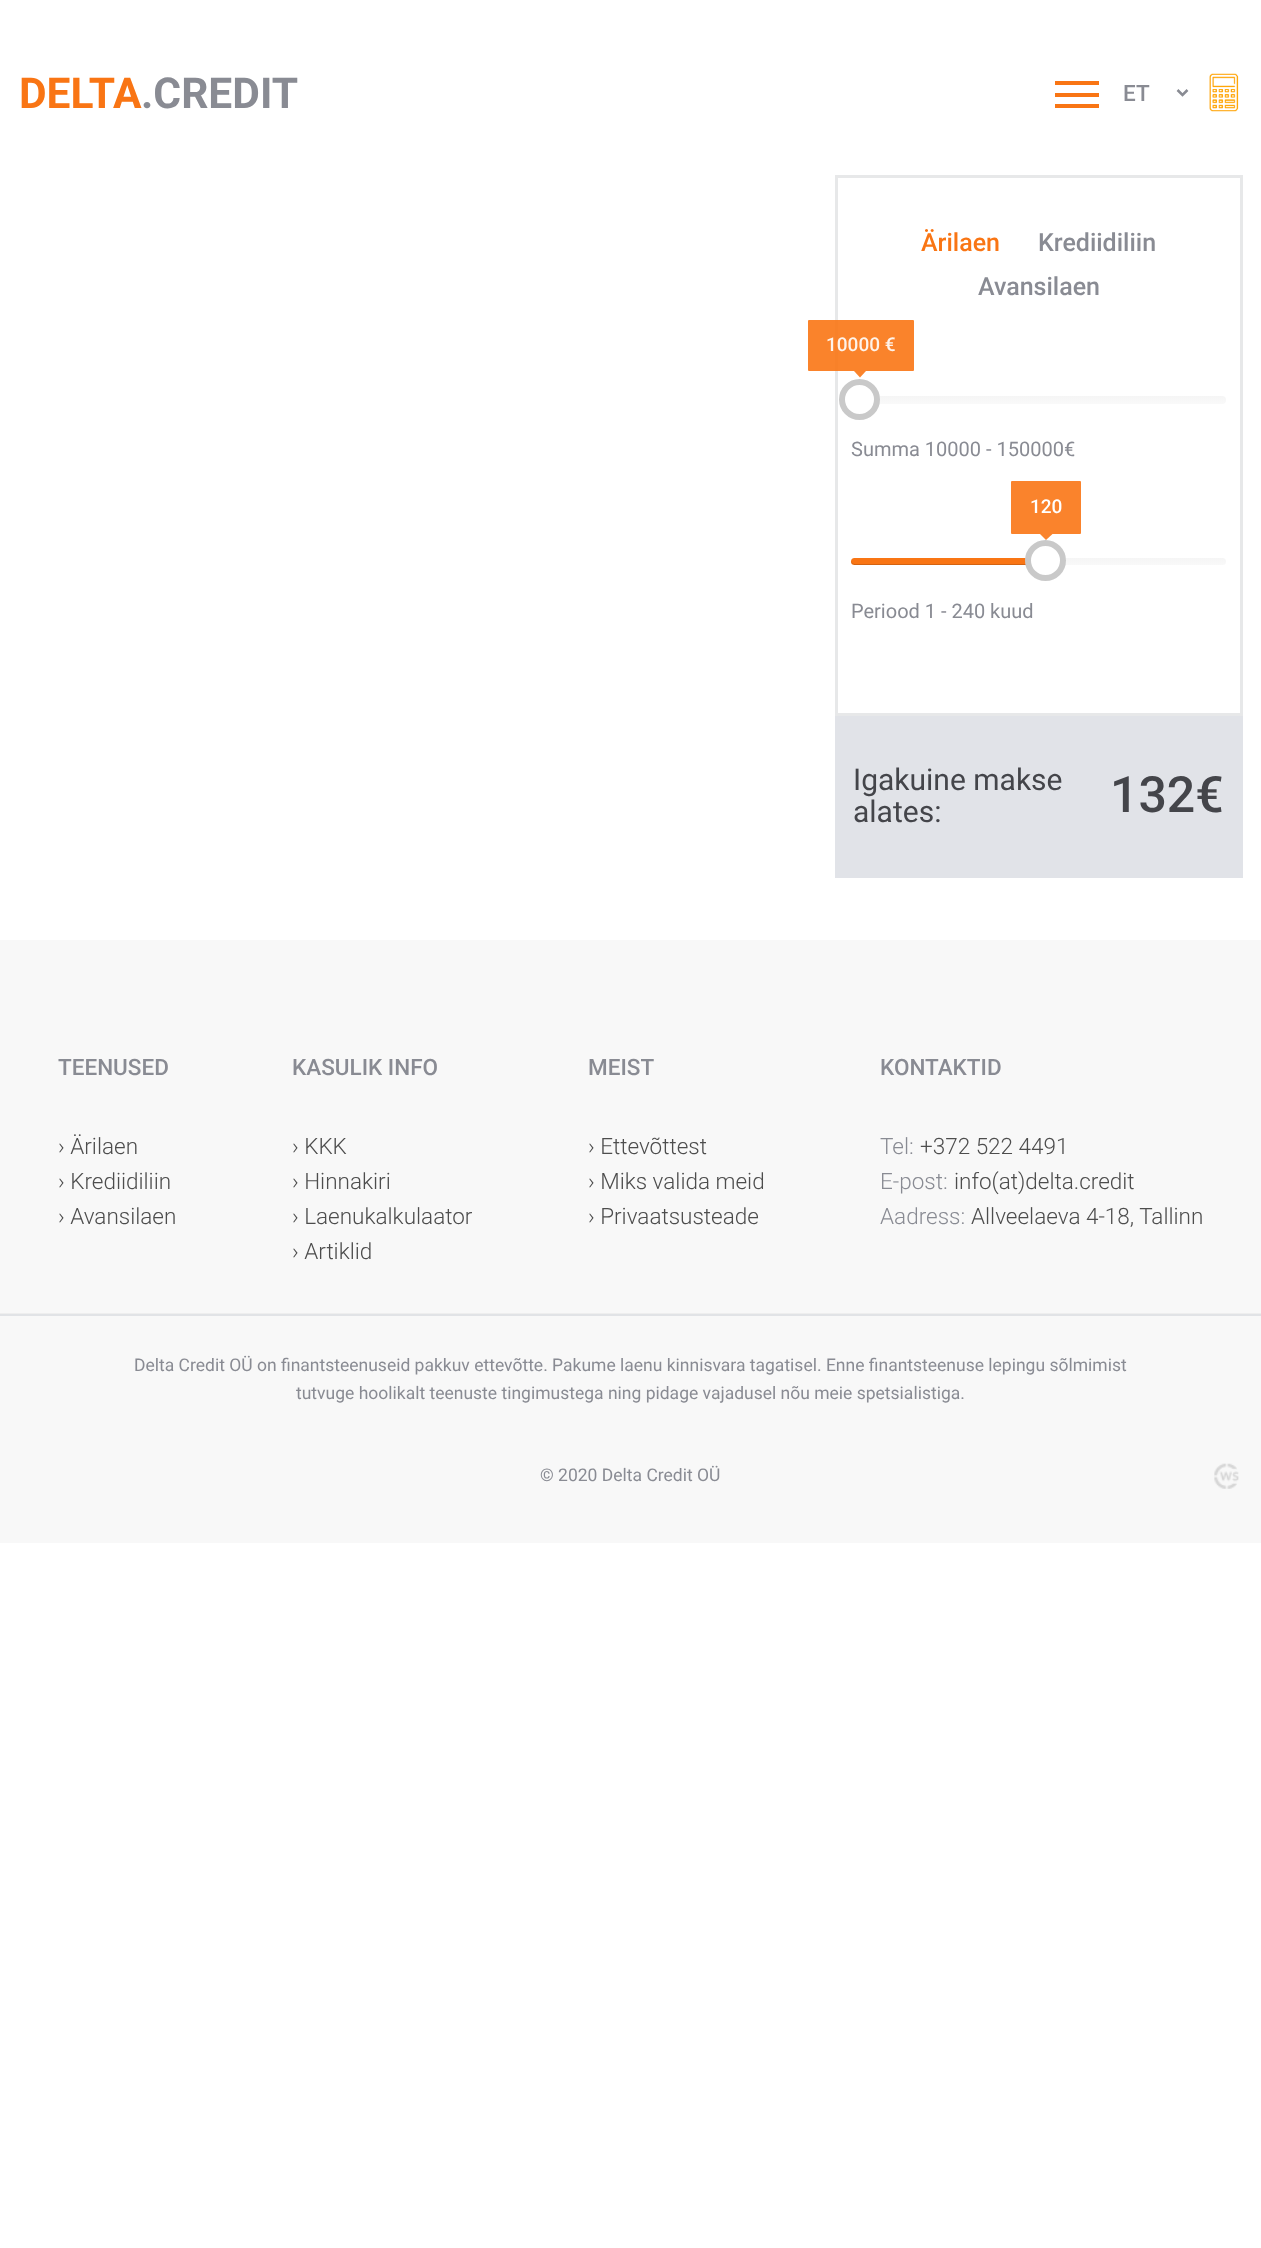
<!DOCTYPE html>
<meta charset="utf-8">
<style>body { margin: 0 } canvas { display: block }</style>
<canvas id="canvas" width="1261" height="2248"></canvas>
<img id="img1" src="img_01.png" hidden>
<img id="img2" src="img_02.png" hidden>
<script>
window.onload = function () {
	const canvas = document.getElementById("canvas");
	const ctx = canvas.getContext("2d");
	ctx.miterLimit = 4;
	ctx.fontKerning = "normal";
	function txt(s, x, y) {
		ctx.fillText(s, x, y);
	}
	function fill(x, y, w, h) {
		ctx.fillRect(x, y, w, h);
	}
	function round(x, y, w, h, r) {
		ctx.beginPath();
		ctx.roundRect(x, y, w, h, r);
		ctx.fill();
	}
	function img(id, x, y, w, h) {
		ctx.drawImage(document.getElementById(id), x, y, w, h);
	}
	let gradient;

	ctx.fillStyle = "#FFFFFF";
	fill(0, 0, 1261, 2248);
	ctx.fillStyle = "#F97514";
	fill(1055, 81, 44, 4);
	fill(1055, 93, 44, 4);
	fill(1055, 104, 44, 4);
	ctx.beginPath();
	ctx.moveTo(1177.5, 90);
	ctx.lineTo(1182.5, 95);
	ctx.lineTo(1187.5, 90);
	ctx.strokeStyle = "#898B93";
	ctx.lineWidth = 2.5;
	ctx.stroke();
	img("img1", 1209, 73, 30, 39);
	ctx.strokeStyle = "#E7E8E9";
	ctx.lineWidth = 3;
	ctx.strokeRect(836.5, 176.5, 405, 538);
	ctx.fillStyle = "rgba(249, 117, 20, 0.9)";
	round(808, 320, 106, 51, 1);
	ctx.fillStyle = "#FA832C";
	ctx.beginPath();
	ctx.moveTo(854, 371);
	ctx.lineTo(866, 371);
	ctx.lineTo(860, 377.5);
	ctx.closePath();
	ctx.fill();
	gradient = ctx.createLinearGradient(1039, 396, 1039, 404);
	gradient.addColorStop(0, "#F5F5F5");
	gradient.addColorStop(1, "#F9F9F9");
	ctx.fillStyle = gradient;
	round(851, 396, 375, 8, 4);
	ctx.fillStyle = "#FFFFFF";
	ctx.beginPath();
	ctx.arc(859.5, 399.5, 17.5, 0, Math.PI * 2);
	ctx.fill();
	ctx.strokeStyle = "#C9C9C9";
	ctx.lineWidth = 6;
	ctx.stroke();
	ctx.fillStyle = "#FA832C";
	round(1011, 481, 70, 53, 1);
	ctx.beginPath();
	ctx.moveTo(1040, 534);
	ctx.lineTo(1052.5, 534);
	ctx.lineTo(1046, 540);
	ctx.closePath();
	ctx.fill();
	gradient = ctx.createLinearGradient(1039, 558, 1039, 565);
	gradient.addColorStop(0, "#F5F5F5");
	gradient.addColorStop(1, "#F9F9F9");
	ctx.fillStyle = gradient;
	round(851, 558, 375, 7, 3.5);
	ctx.fillStyle = "#F97514";
	round(851, 558, 187, 7, 3.5);
	ctx.fillStyle = "rgba(0, 0, 0, 0.15)";
	ctx.beginPath();
	ctx.moveTo(851, 561);
	ctx.bezierCurveTo(851, 562, 851, 564, 853, 564);
	ctx.lineTo(854, 565);
	ctx.lineTo(1034, 565);
	ctx.bezierCurveTo(1037, 565, 1038, 563, 1038, 561);
	ctx.bezierCurveTo(1038, 562, 1036, 564, 1034, 564);
	ctx.lineTo(855, 564);
	ctx.bezierCurveTo(853, 564, 851, 562, 851, 561);
	ctx.closePath();
	ctx.fill();
	ctx.fillStyle = "#FFFFFF";
	ctx.beginPath();
	ctx.arc(1045.5, 560.5, 20.5, 0, Math.PI * 2);
	ctx.fill();
	ctx.beginPath();
	ctx.arc(1045.5, 560.5, 17.5, 0, Math.PI * 2);
	ctx.strokeStyle = "rgba(0, 0, 0, 0.21)";
	ctx.stroke();
	ctx.fillStyle = "#E1E3E8";
	fill(835, 716, 408, 162);
	ctx.fillStyle = "#F8F8F8";
	fill(0, 940, 1261, 603);
	ctx.fillStyle = "#E1E3E6";
	fill(0, 1314, 1261, 2);
	ctx.fillStyle = "#EEEEEE";
	fill(0, 1313, 1261, 1);
	img("img2", 1214, 1463, 25, 26);
	ctx.font = "bold 42.5px Roboto";
	ctx.fillStyle = "#F97514";
	txt("DELTA", 19, 108);
	ctx.fillStyle = "#898B93";
	txt(".CREDIT", 141, 108);
	ctx.font = "500 22.5px Roboto";
	txt("ET", 1123, 101);
	ctx.font = "500 25px Roboto";
	ctx.fillStyle = "#F97514";
	txt("Ärilaen", 921, 251);
	ctx.fillStyle = "#898B93";
	txt("Krediidiliin", 1038, 251);
	txt("Avansilaen", 978, 295);
	ctx.font = "500 19px Roboto";
	ctx.fillStyle = "#FEF3EA";
	txt("10000 €", 826, 351);
	ctx.font = "20px Roboto";
	ctx.fillStyle = "#898B93";
	txt("Summa 10000 - 150000", 851, 456);
	txt("€", 1064, 456);
	ctx.font = "500 19px Roboto";
	ctx.fillStyle = "#FFFFFF";
	txt("120", 1030, 513);
	ctx.font = "20px Roboto";
	ctx.fillStyle = "#898B93";
	txt("Periood 1 - 240", 851, 618);
	txt("kuud", 990, 618);
	ctx.font = "30px Roboto";
	ctx.fillStyle = "#44454A";
	txt("Igakuine makse", 853, 790);
	txt("alates:", 853, 822);
	ctx.font = "500 50px Roboto";
	txt("132€", 1110, 812);
	ctx.font = "500 22.5px Roboto";
	ctx.fillStyle = "#898B93";
	txt("TEENUSED", 58, 1075);
	ctx.font = "300 22.5px Roboto";
	ctx.fillStyle = "#4D4D4D";
	txt("› Ärilaen", 58, 1154);
	txt("› Krediidiliin", 58, 1189);
	txt("› Avansilaen", 58, 1224);
	ctx.font = "500 22.5px Roboto";
	ctx.fillStyle = "#898B93";
	txt("KASULIK INFO", 292, 1075);
	ctx.font = "300 22.5px Roboto";
	ctx.fillStyle = "#4D4D4D";
	txt("› KKK", 292, 1154);
	txt("› Hinnakiri", 292, 1189);
	txt("› Laenukalkulaator", 292, 1224);
	txt("› Artiklid", 292, 1259);
	ctx.font = "500 22.5px Roboto";
	ctx.fillStyle = "#898B93";
	txt("MEIST", 588, 1075);
	ctx.font = "300 22.5px Roboto";
	ctx.fillStyle = "#4D4D4D";
	txt("› Ettevõttest", 588, 1154);
	txt("› Miks valida meid", 588, 1189);
	txt("› Privaatsusteade", 588, 1224);
	ctx.font = "500 22.5px Roboto";
	ctx.fillStyle = "#898B93";
	txt("KONTAKTID", 880, 1075);
	ctx.font = "300 22.5px Roboto";
	txt("Tel:", 880, 1154);
	ctx.fillStyle = "#4D4D4D";
	txt("+372 522 4491", 920, 1154);
	ctx.fillStyle = "#898B93";
	txt("E-post:", 880, 1189);
	ctx.fillStyle = "#4D4D4D";
	txt("info(at)delta.credit", 954, 1189);
	ctx.fillStyle = "#898B93";
	txt("Aadress:", 880, 1224);
	ctx.fillStyle = "#4D4D4D";
	txt("Allveelaeva 4-18, Tallinn", 971, 1224);
	ctx.font = "17.5px Roboto";
	ctx.fillStyle = "#898B93";
	txt("Delta Credit OÜ on finantsteenuseid pakkuv ettevõtte. Pakume laenu kinnisvara tagatisel. Enne finantsteenuse lepingu sõlmimist", 134, 1371);
	txt("tutvuge hoolikalt teenuste tingimustega ning pidage vajadusel nõu meie spetsialistiga.", 296, 1399);
	txt("© 2020 Delta Credit OÜ", 540, 1481);
};
</script>
